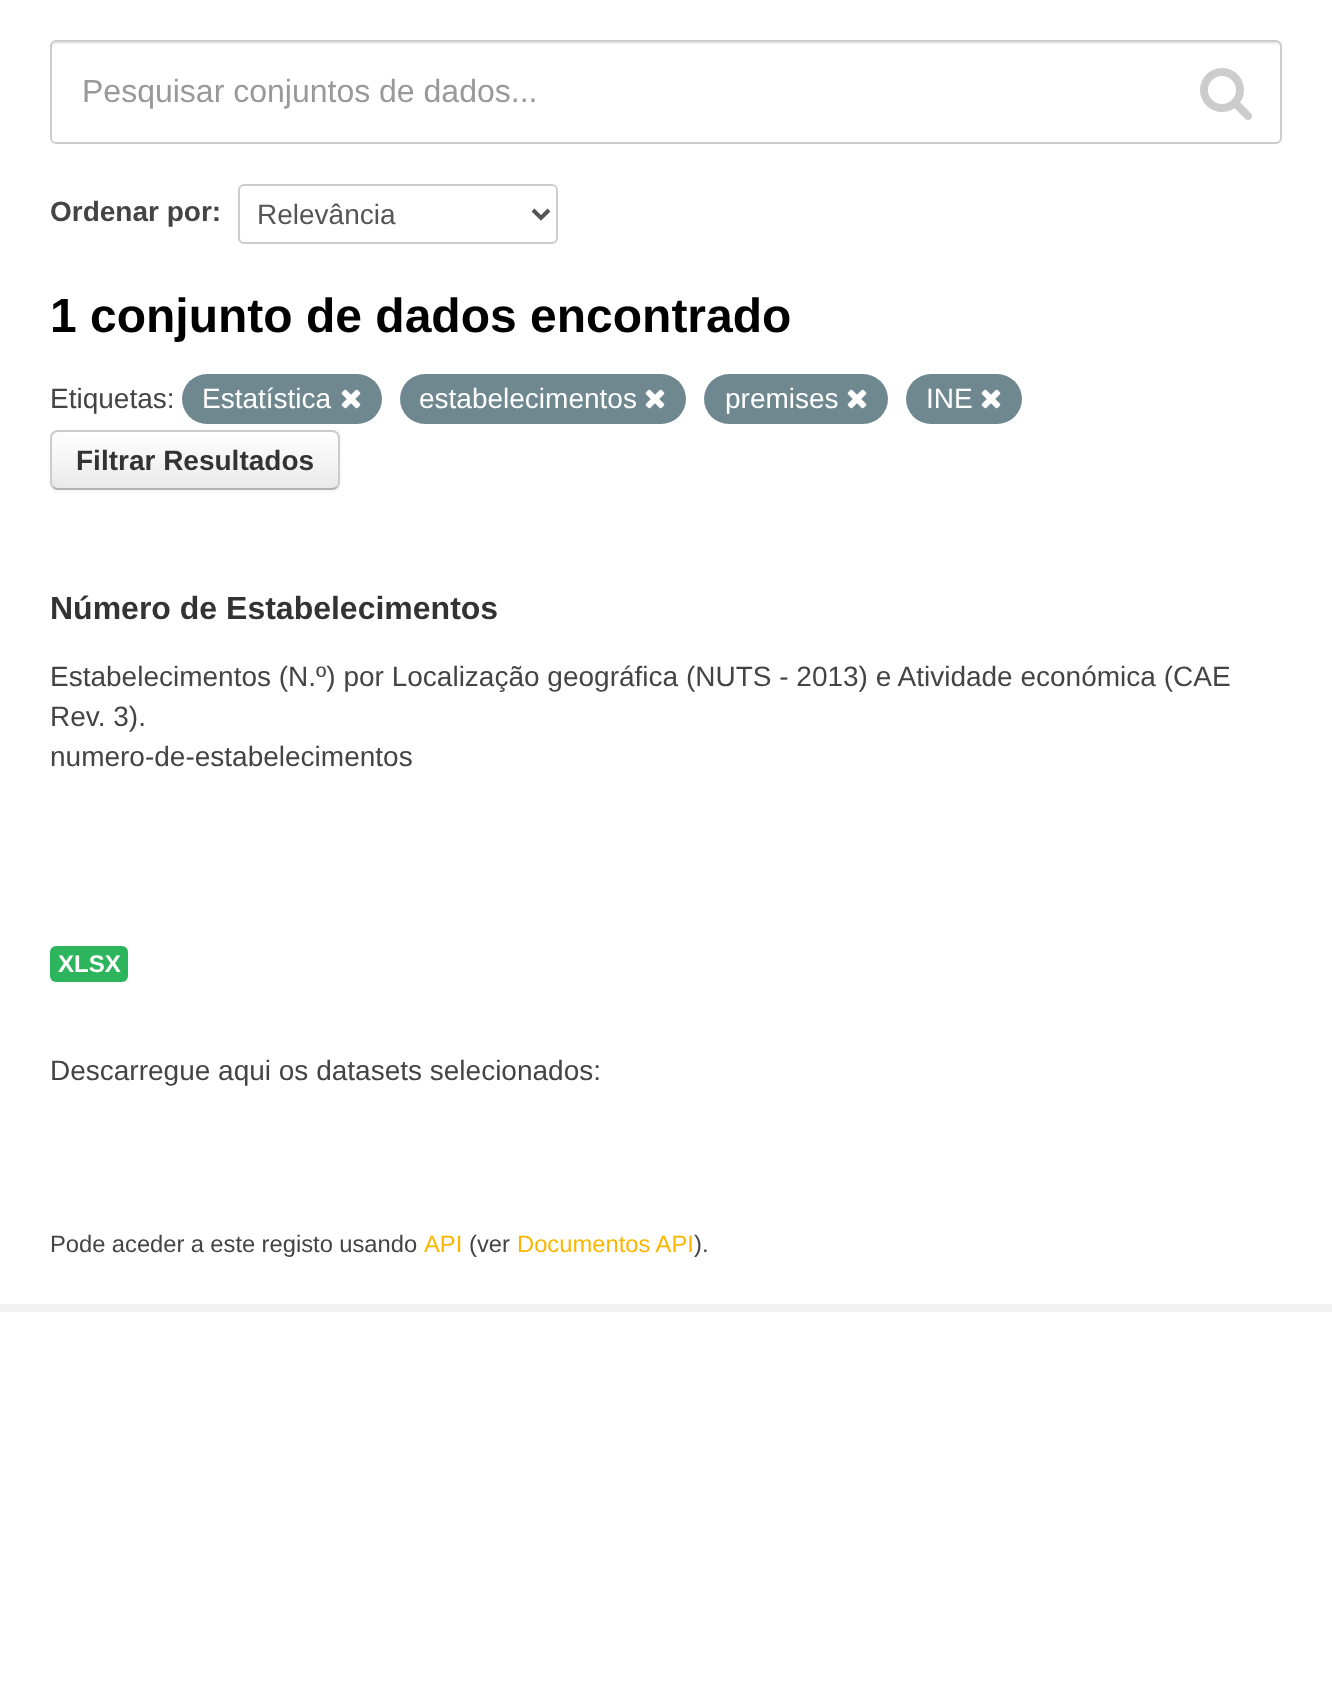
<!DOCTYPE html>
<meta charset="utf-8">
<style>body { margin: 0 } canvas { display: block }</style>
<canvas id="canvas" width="1332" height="1683"></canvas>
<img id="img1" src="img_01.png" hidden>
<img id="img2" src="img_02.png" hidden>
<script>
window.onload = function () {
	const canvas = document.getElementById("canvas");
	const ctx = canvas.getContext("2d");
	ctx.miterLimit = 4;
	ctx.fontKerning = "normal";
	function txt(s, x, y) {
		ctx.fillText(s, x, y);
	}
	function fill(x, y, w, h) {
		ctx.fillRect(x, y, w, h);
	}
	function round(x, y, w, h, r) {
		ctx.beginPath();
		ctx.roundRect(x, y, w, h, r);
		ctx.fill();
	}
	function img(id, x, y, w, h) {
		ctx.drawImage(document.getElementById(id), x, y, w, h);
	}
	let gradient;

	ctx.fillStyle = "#FFFFFF";
	fill(0, 0, 1332, 1683);
	ctx.strokeStyle = "#F2F2F2";
	ctx.lineWidth = 8;
	ctx.strokeRect(-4, -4, 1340, 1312);
	ctx.fillStyle = "#ECECEC";
	ctx.beginPath();
	ctx.moveTo(56, 44);
	ctx.lineTo(1276, 44);
	ctx.bezierCurveTo(1278, 44, 1280, 46, 1280, 48);
	ctx.bezierCurveTo(1280, 45, 1280, 42, 1276, 42);
	ctx.lineTo(56, 42);
	ctx.bezierCurveTo(52, 42, 52, 45, 52, 48);
	ctx.bezierCurveTo(52, 46, 54, 44, 56, 44);
	ctx.closePath();
	ctx.fill();
	ctx.beginPath();
	ctx.roundRect(51, 41, 1230, 102, 5);
	ctx.strokeStyle = "#CCCCCC";
	ctx.lineWidth = 2;
	ctx.stroke();
	img("img1", 1200, 68, 52, 52);
	ctx.beginPath();
	ctx.roundRect(239, 185, 318, 58, 5);
	ctx.stroke();
	ctx.beginPath();
	ctx.moveTo(533, 210);
	ctx.lineTo(541, 218);
	ctx.lineTo(549, 210);
	ctx.strokeStyle = "#555555";
	ctx.lineWidth = 4;
	ctx.stroke();
	ctx.fillStyle = "#6F8890";
	round(182, 374, 200, 50, 25);
	img("img2", 341, 389, 20, 20);
	round(400, 374, 286, 50, 25);
	img("img2", 645, 389, 20, 20);
	round(704, 374, 184, 50, 25);
	img("img2", 847, 389, 20, 20);
	round(906, 374, 116, 50, 25);
	img("img2", 981, 389, 20, 20);
	ctx.fillStyle = "rgba(0, 0, 0, 0.05)";
	ctx.filter = "blur(2px)";
	ctx.beginPath();
	ctx.roundRect(50, 432, 290, 60, 8);
	ctx.fill();
	ctx.filter = "none";
	ctx.save();
	ctx.beginPath();
	ctx.roundRect(50, 430, 290, 60, 8);
	ctx.clip();
	gradient = ctx.createLinearGradient(195, 432, 195, 488);
	gradient.addColorStop(0, "#FFFFFF");
	gradient.addColorStop(1, "#EAEAEA");
	ctx.fillStyle = gradient;
	fill(50, 432, 290, 56);
	ctx.restore();
	ctx.beginPath();
	ctx.moveTo(337, 487);
	ctx.bezierCurveTo(335.5, 488.5, 334, 489, 332, 489);
	ctx.lineTo(58, 489);
	ctx.bezierCurveTo(56, 489, 54.5, 488.5, 53, 487);
	ctx.strokeStyle = "#B3B3B3";
	ctx.lineWidth = 2;
	ctx.stroke();
	ctx.beginPath();
	ctx.moveTo(53, 487);
	ctx.bezierCurveTo(51.5, 485.5, 51, 484, 51, 482);
	ctx.lineTo(51, 438);
	ctx.bezierCurveTo(51, 436, 51.5, 434.5, 53, 433);
	ctx.bezierCurveTo(54.5, 431.5, 56, 431, 58, 431);
	ctx.lineTo(332, 431);
	ctx.bezierCurveTo(334, 431, 335.5, 431.5, 337, 433);
	ctx.bezierCurveTo(338.5, 434.5, 339, 436, 339, 438);
	ctx.lineTo(339, 482);
	ctx.bezierCurveTo(339, 484, 338.5, 485.5, 337, 487);
	ctx.strokeStyle = "#CCCCCC";
	ctx.stroke();
	ctx.fillStyle = "#2DB55D";
	round(50, 946, 78, 36, 6);
	ctx.font = "32px Liberation Sans";
	ctx.fillStyle = "#999999";
	txt("Pesquisar conjuntos de dados...", 82, 102);
	ctx.font = "bold 28px Liberation Sans";
	ctx.fillStyle = "#444444";
	txt("Ordenar por:", 50, 221);
	ctx.font = "28px Liberation Sans";
	ctx.fillStyle = "#555555";
	txt("Relevância", 257, 224);
	ctx.font = "bold 48px Liberation Sans";
	ctx.fillStyle = "#000000";
	txt("1 conjunto de dados encontrado", 50, 332);
	ctx.font = "28px Liberation Sans";
	ctx.fillStyle = "#444444";
	txt("Etiquetas:", 50, 408);
	ctx.fillStyle = "#FFFFFF";
	txt("Estatística", 202, 408);
	txt("estabelecimentos", 419, 408);
	txt("premises", 725, 408);
	txt("INE", 926, 408);
	ctx.font = "bold 28px Liberation Sans";
	ctx.fillStyle = "#333333";
	txt("Filtrar Resultados", 76, 470);
	ctx.font = "bold 32px Liberation Sans";
	txt("Número de Estabelecimentos", 50, 619);
	ctx.font = "28px Liberation Sans";
	ctx.fillStyle = "#444444";
	txt("Estabelecimentos (N.º) por Localização geográfica (NUTS - 2013) e Atividade económica (CAE", 50, 686);
	txt("Rev. 3).", 50, 726);
	txt("numero-de-estabelecimentos", 50, 766);
	ctx.font = "bold 24px Liberation Sans";
	ctx.fillStyle = "#FFFFFF";
	txt("XLSX", 58, 972);
	ctx.font = "28px Liberation Sans";
	ctx.fillStyle = "#444444";
	txt("Descarregue aqui os datasets selecionados:", 50, 1080);
	ctx.wordSpacing = "-0.25px";
	ctx.font = "23.75px Liberation Sans";
	txt("Pode aceder a este registo usando", 50, 1252);
	ctx.wordSpacing = "0px";
	ctx.fillStyle = "#FBB600";
	txt("API", 424, 1252);
	ctx.fillStyle = "#444444";
	txt("(ver", 469, 1252);
	ctx.fillStyle = "#FBB600";
	txt("Documentos API", 517, 1252);
	ctx.fillStyle = "#444444";
	txt(").", 694, 1252);
};
</script>
